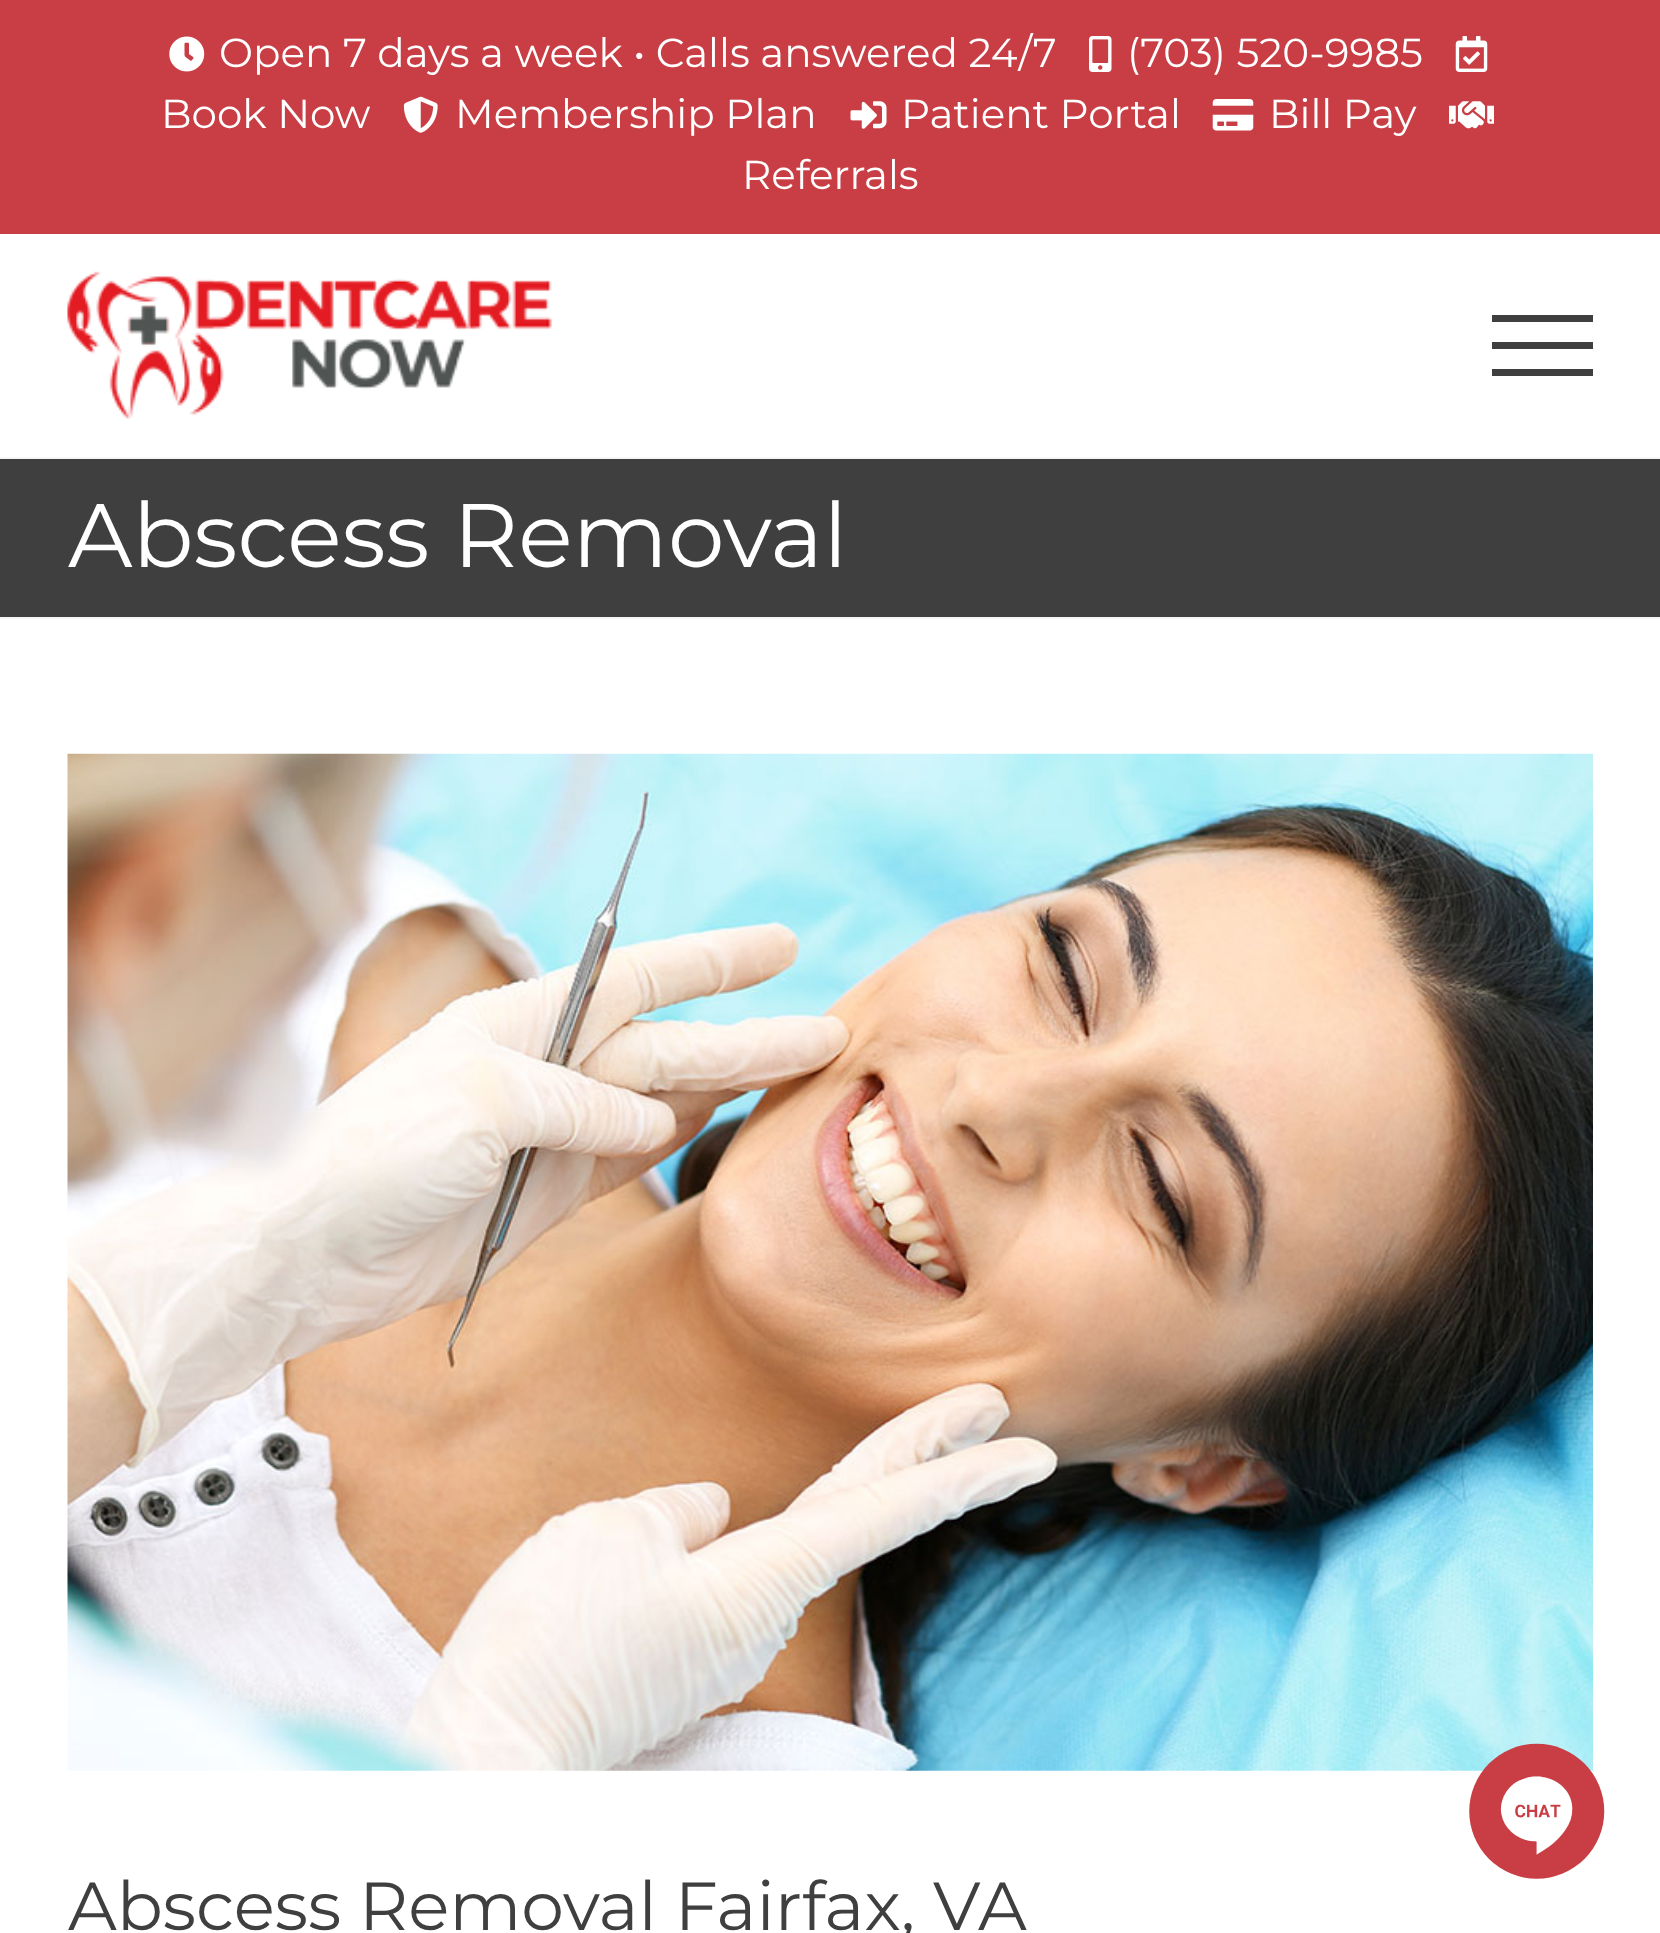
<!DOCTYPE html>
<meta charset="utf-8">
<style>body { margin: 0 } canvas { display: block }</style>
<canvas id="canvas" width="1660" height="1933"></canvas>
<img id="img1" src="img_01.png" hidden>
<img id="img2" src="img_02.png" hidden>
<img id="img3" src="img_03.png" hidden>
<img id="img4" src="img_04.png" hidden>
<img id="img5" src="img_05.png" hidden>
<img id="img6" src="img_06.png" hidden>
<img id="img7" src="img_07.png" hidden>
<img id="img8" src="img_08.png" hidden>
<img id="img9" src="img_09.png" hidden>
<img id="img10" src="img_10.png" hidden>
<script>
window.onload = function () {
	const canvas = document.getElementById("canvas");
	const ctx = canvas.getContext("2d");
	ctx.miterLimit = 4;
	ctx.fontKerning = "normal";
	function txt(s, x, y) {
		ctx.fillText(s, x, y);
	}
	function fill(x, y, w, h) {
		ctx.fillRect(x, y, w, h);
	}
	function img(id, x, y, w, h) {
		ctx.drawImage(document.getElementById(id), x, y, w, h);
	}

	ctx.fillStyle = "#3F3F3F";
	fill(0, 0, 1660, 1933);
	ctx.fillStyle = "#C83E44";
	fill(0, 0, 1660, 234);
	ctx.fillStyle = "#FFFFFF";
	fill(0, 234, 1660, 223);
	img("img1", 169, 36, 36, 36);
	img("img2", 1089, 36, 23, 36);
	img("img3", 1455, 36, 33, 36);
	img("img4", 403, 96, 35, 37);
	img("img5", 850, 101, 37, 28);
	img("img6", 1212, 99, 42, 32);
	img("img7", 1449, 101, 45, 28);
	img("img8", 67, 271, 485, 148);
	ctx.fillStyle = "#3F3F3F";
	fill(1492, 315, 101, 7);
	fill(1492, 342, 101, 7);
	fill(1492, 369, 101, 7);
	ctx.fillStyle = "#F6F6F6";
	fill(0, 457, 1660, 2);
	fill(0, 617, 1660, 2);
	ctx.fillStyle = "#FFFFFF";
	fill(0, 619, 1660, 1314);
	img("img9", 67, 753, 1526, 1018);
	img("img10", 1469, 1710, 136, 169);
	ctx.font = "40.5px Montserrat";
	txt("Open 7 days a week • Calls answered 24/7", 219, 67);
	txt("(703) 520-9985", 1127, 67);
	txt("Book Now", 161, 128);
	txt("Membership Plan", 455, 128);
	txt("Patient Portal", 901, 128);
	txt("Bill Pay", 1269, 128);
	txt("Referrals", 742, 189);
	ctx.font = "90px Montserrat";
	txt("Abscess Removal", 68, 567);
	ctx.font = "68px Montserrat";
	ctx.fillStyle = "#3F3F3F";
	txt("Abscess Removal Fairfax, VA", 68, 1930);
};
</script>
